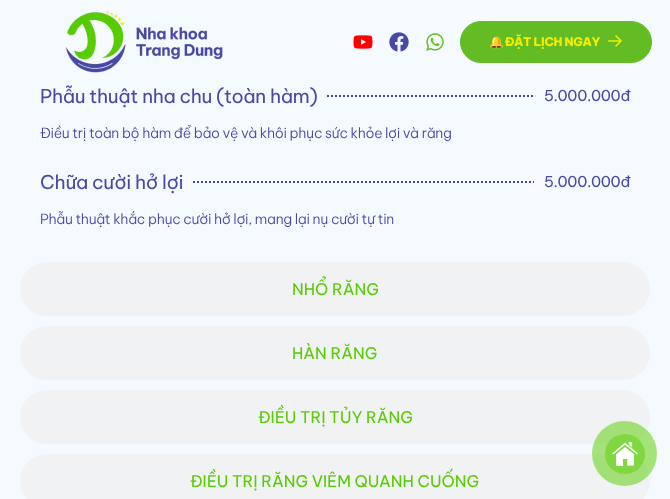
<!DOCTYPE html>
<meta charset="utf-8">
<style>body { margin: 0 } canvas { display: block }</style>
<canvas id="canvas" width="670" height="499"></canvas>
<img id="img1" src="img_01.png" hidden>
<img id="img2" src="img_02.png" hidden>
<img id="img3" src="img_03.png" hidden>
<img id="img4" src="img_04.png" hidden>
<img id="img5" src="img_05.png" hidden>
<img id="img6" src="img_06.png" hidden>
<script>
window.onload = function () {
	const canvas = document.getElementById("canvas");
	const ctx = canvas.getContext("2d");
	ctx.miterLimit = 4;
	ctx.fontKerning = "normal";
	function txt(s, x, y) {
		ctx.fillText(s, x, y);
	}
	function fill(x, y, w, h) {
		ctx.fillRect(x, y, w, h);
	}
	function round(x, y, w, h, r) {
		ctx.beginPath();
		ctx.roundRect(x, y, w, h, r);
		ctx.fill();
	}
	function img(id, x, y, w, h) {
		ctx.drawImage(document.getElementById(id), x, y, w, h);
	}

	ctx.fillStyle = "#F5FAFE";
	fill(0, 0, 670, 499);
	img("img1", 65, 10, 158, 63);
	img("img2", 353, 35, 20, 14);
	img("img3", 389, 32, 20, 20);
	img("img4", 426, 33, 18, 18);
	ctx.fillStyle = "#64BC24";
	ctx.beginPath();
	ctx.roundRect(460.5, 21.5, 191, 41, 20.5);
	ctx.fill();
	ctx.strokeStyle = "#64BC24";
	ctx.stroke();
	img("img5", 608, 35, 14, 12);
	ctx.beginPath();
	ctx.moveTo(327, 96);
	ctx.lineTo(534, 96);
	ctx.strokeStyle = "#4749A5";
	ctx.lineWidth = 2;
	ctx.setLineDash([2, 2]);
	ctx.stroke();
	ctx.beginPath();
	ctx.moveTo(193, 182);
	ctx.lineTo(534, 182);
	ctx.stroke();
	ctx.fillStyle = "#F1F2F3";
	round(20, 262, 630, 54, 27);
	round(20, 326, 630, 54, 27);
	round(20, 390, 630, 54, 27);
	round(20, 454, 630, 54, 27);
	ctx.fillStyle = "rgba(129, 215, 66, 0.7)";
	ctx.beginPath();
	ctx.arc(624.5, 453.5, 32.5, 0, Math.PI * 2);
	ctx.fill();
	ctx.fillStyle = "#81D742";
	ctx.beginPath();
	ctx.arc(625, 454, 20, 0, Math.PI * 2);
	ctx.fill();
	img("img6", 612, 442, 27, 24);
	ctx.letterSpacing = "-0.32px";
	ctx.font = "bold 12px Noto Color Emoji";
	ctx.fillStyle = "#F6EE00";
	txt("🔔", 489, 46);
	ctx.font = "800 12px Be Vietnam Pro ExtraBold";
	txt("ĐẶT LỊCH NGAY", 505, 46);
	ctx.font = "19px Be Vietnam Pro";
	ctx.fillStyle = "#4749A5";
	txt("Phẫu thuật nha chu (toàn hàm)", 40, 103);
	ctx.font = "15px Be Vietnam Pro";
	txt("5.000.000đ", 544, 101);
	ctx.font = "300 14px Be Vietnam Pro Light";
	txt("Điều trị toàn bộ hàm để bảo vệ và khôi phục sức khỏe lợi và răng", 40, 138);
	ctx.font = "19px Be Vietnam Pro";
	txt("Chữa cười hở lợi", 40, 189);
	ctx.font = "15px Be Vietnam Pro";
	txt("5.000.000đ", 544, 187);
	ctx.font = "300 14px Be Vietnam Pro Light";
	txt("Phẫu thuật khắc phục cười hở lợi, mang lại nụ cười tự tin", 40, 224);
	ctx.letterSpacing = "0px";
	ctx.font = "16px Be Vietnam Pro";
	ctx.fillStyle = "#57CC00";
	txt("NHỔ RĂNG", 292, 295);
	txt("HÀN RĂNG", 292, 359);
	txt("ĐIỀU TRỊ TỦY RĂNG", 258, 423);
	txt("ĐIỀU TRỊ RĂNG VIÊM QUANH CUỐNG", 190, 487);
};
</script>
